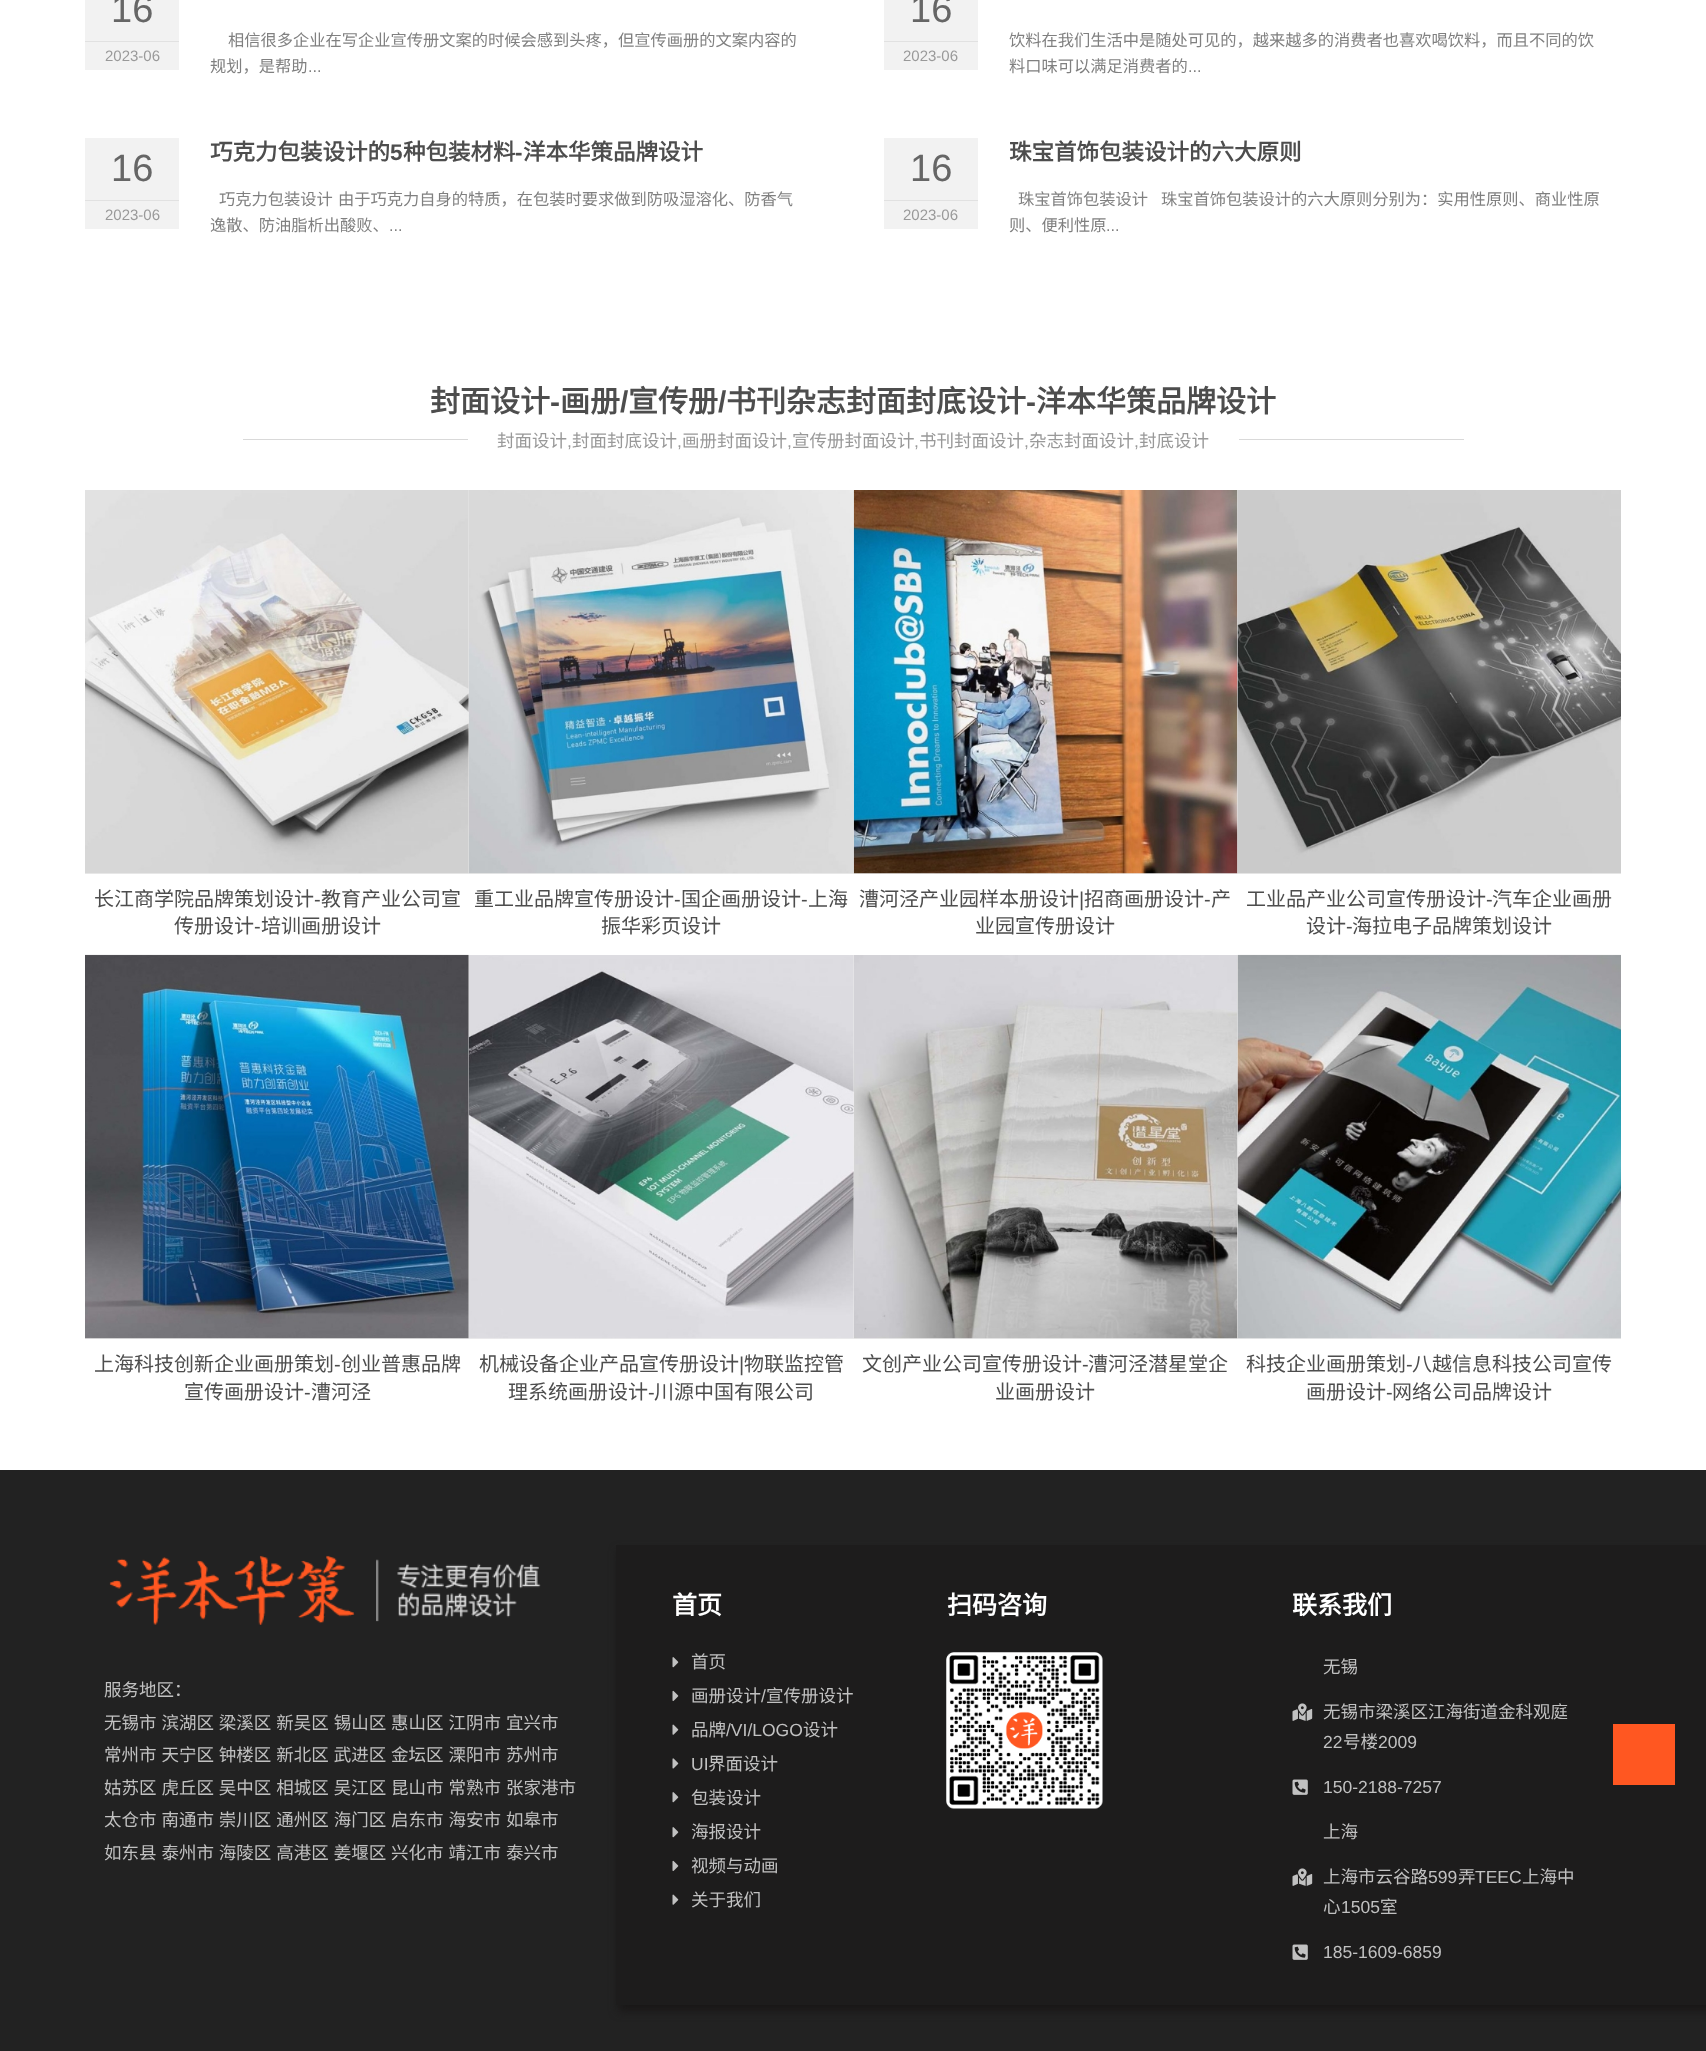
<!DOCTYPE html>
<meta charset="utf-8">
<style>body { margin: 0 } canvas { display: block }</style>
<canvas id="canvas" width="1706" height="2051"></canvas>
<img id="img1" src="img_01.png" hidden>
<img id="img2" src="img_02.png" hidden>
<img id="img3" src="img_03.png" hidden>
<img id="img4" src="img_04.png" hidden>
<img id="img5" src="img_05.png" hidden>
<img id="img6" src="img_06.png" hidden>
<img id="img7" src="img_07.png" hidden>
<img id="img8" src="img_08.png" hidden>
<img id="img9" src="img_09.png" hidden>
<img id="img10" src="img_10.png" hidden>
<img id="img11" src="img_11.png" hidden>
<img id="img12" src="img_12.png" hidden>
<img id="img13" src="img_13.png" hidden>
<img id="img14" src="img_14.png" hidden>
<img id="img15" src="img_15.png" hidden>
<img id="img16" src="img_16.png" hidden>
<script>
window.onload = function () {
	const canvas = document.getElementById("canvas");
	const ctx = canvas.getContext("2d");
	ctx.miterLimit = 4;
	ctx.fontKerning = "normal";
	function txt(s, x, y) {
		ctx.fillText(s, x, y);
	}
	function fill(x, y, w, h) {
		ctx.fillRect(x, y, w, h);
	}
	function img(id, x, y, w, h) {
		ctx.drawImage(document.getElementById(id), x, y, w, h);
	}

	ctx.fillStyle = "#FFFFFF";
	fill(0, 0, 1706, 2051);
	ctx.fillStyle = "#F2F2F2";
	fill(85, 0, 94, 70);
	ctx.fillStyle = "#E1E1E1";
	fill(85, 41, 94, 1);
	ctx.fillStyle = "#F2F2F2";
	fill(884, 0, 94, 70);
	ctx.fillStyle = "#E1E1E1";
	fill(884, 41, 94, 1);
	ctx.fillStyle = "#F2F2F2";
	fill(85, 138, 94, 91);
	ctx.fillStyle = "#E1E1E1";
	fill(85, 200, 94, 1);
	ctx.fillStyle = "#F2F2F2";
	fill(884, 138, 94, 91);
	ctx.fillStyle = "#E1E1E1";
	fill(884, 200, 94, 1);
	ctx.fillStyle = "#D9D9D9";
	fill(243, 439, 225, 1);
	fill(1239, 439, 225, 1);
	ctx.fillStyle = "#ECECEC";
	fill(85, 490, 1153, 384);
	img("img1", 85, 490, 384, 384);
	img("img2", 468, 490, 386, 384);
	img("img3", 853, 490, 385, 384);
	fill(1238, 873, 383, 1);
	img("img4", 1237, 490, 384, 384);
	fill(85, 955, 1153, 384);
	img("img5", 85, 954, 384, 385);
	img("img6", 468, 955, 386, 384);
	img("img7", 854, 955, 384, 384);
	fill(1238, 1338, 383, 1);
	img("img8", 1237, 954, 384, 385);
	ctx.fillStyle = "#222222";
	fill(0, 1470, 1706, 581);
	img("img9", 109, 1555, 432, 70);
	ctx.fillStyle = "#191717";
	ctx.filter = "blur(5px)";
	ctx.beginPath();
	ctx.rect(618, 1551, 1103, 460);
	ctx.fill();
	ctx.filter = "none";
	ctx.fillStyle = "#1D1C1C";
	fill(616, 1545, 1090, 460);
	img("img10", 672, 1657, 7, 11);
	img("img11", 672, 1690, 7, 11);
	img("img12", 672, 1724, 7, 11);
	img("img13", 672, 1758, 7, 11);
	img("img10", 672, 1792, 7, 11);
	img("img10", 672, 1827, 7, 11);
	img("img11", 672, 1860, 7, 11);
	img("img12", 672, 1894, 7, 11);
	img("img14", 946, 1652, 157, 157);
	img("img15", 1292, 1703, 21, 18);
	img("img16", 1292, 1779, 16, 16);
	img("img15", 1292, 1868, 21, 18);
	img("img16", 1292, 1944, 16, 16);
	ctx.fillStyle = "#FF5721";
	fill(1613, 1724, 62, 61);
	ctx.font = "38px Liberation Sans";
	ctx.fillStyle = "#666666";
	txt("16", 111, 22);
	ctx.font = "15px Liberation Sans";
	ctx.fillStyle = "#999999";
	txt("2023-06", 105, 61);
	ctx.font = "16.25px Noto Sans CJK SC";
	ctx.fillStyle = "#808080";
	txt("相信很多企业在写企业宣传册文案的时候会感到头疼，但宣传画册的文案内容的", 228, 46);
	txt("规划，是帮助", 210, 72);
	ctx.font = "16.25px Liberation Sans";
	txt("...", 308, 72);
	ctx.font = "38px Liberation Sans";
	ctx.fillStyle = "#666666";
	txt("16", 910, 22);
	ctx.font = "15px Liberation Sans";
	ctx.fillStyle = "#999999";
	txt("2023-06", 903, 61);
	ctx.font = "16.25px Noto Sans CJK SC";
	ctx.fillStyle = "#808080";
	txt("饮料在我们生活中是随处可见的，越来越多的消费者也喜欢喝饮料，而且不同的饮", 1009, 46);
	txt("料口味可以满足消费者的", 1009, 72);
	ctx.font = "16.25px Liberation Sans";
	txt("...", 1188, 72);
	ctx.font = "bold 22.5px Noto Sans CJK SC";
	ctx.fillStyle = "#4D4D4D";
	txt("巧克力包装设计的", 210, 160);
	ctx.font = "bold 22.5px Liberation Sans";
	txt("5", 390, 160);
	ctx.font = "bold 22.5px Noto Sans CJK SC";
	txt("种包装材料", 403, 160);
	ctx.font = "bold 22.5px Liberation Sans";
	txt("-", 515, 160);
	ctx.font = "bold 22.5px Noto Sans CJK SC";
	txt("洋本华策品牌设计", 523, 160);
	ctx.font = "38px Liberation Sans";
	ctx.fillStyle = "#666666";
	txt("16", 111, 181);
	ctx.font = "15px Liberation Sans";
	ctx.fillStyle = "#999999";
	txt("2023-06", 105, 220);
	ctx.font = "16.25px Noto Sans CJK SC";
	ctx.fillStyle = "#808080";
	txt("巧克力包装设计", 219, 205);
	txt("由于巧克力自身的特质，在包装时要求做到防吸湿溶化、防香气", 338, 205);
	txt("逸散、防油脂析出酸败、", 210, 231);
	ctx.font = "16.25px Liberation Sans";
	txt("...", 389, 231);
	ctx.font = "bold 22.5px Noto Sans CJK SC";
	ctx.fillStyle = "#4D4D4D";
	txt("珠宝首饰包装设计的六大原则", 1009, 160);
	ctx.font = "38px Liberation Sans";
	ctx.fillStyle = "#666666";
	txt("16", 910, 181);
	ctx.font = "15px Liberation Sans";
	ctx.fillStyle = "#999999";
	txt("2023-06", 903, 220);
	ctx.font = "16.25px Noto Sans CJK SC";
	ctx.fillStyle = "#808080";
	txt("珠宝首饰包装设计", 1018, 205);
	txt("珠宝首饰包装设计的六大原则分别为：实用性原则、商业性原", 1161, 205);
	txt("则、便利性原", 1009, 231);
	ctx.font = "16.25px Liberation Sans";
	txt("...", 1106, 231);
	ctx.font = "bold 30px Noto Sans CJK SC";
	ctx.fillStyle = "#4D4D4D";
	txt("封面设计", 430, 412);
	ctx.font = "bold 30px Liberation Sans";
	txt("-", 550, 412);
	ctx.font = "bold 30px Noto Sans CJK SC";
	txt("画册", 560, 412);
	ctx.font = "bold 30px Liberation Sans";
	txt("/", 620, 412);
	ctx.font = "bold 30px Noto Sans CJK SC";
	txt("宣传册", 628, 412);
	ctx.font = "bold 30px Liberation Sans";
	txt("/", 718, 412);
	ctx.font = "bold 30px Noto Sans CJK SC";
	txt("书刊杂志封面封底设计", 726, 412);
	ctx.font = "bold 30px Liberation Sans";
	txt("-", 1026, 412);
	ctx.font = "bold 30px Noto Sans CJK SC";
	txt("洋本华策品牌设计", 1036, 412);
	ctx.font = "17.5px Noto Sans CJK SC";
	ctx.fillStyle = "#999999";
	txt("封面设计", 497, 447);
	ctx.font = "17.5px Liberation Sans";
	txt(",", 567, 447);
	ctx.font = "17.5px Noto Sans CJK SC";
	txt("封面封底设计", 572, 447);
	ctx.font = "17.5px Liberation Sans";
	txt(",", 677, 447);
	ctx.font = "17.5px Noto Sans CJK SC";
	txt("画册封面设计", 682, 447);
	ctx.font = "17.5px Liberation Sans";
	txt(",", 787, 447);
	ctx.font = "17.5px Noto Sans CJK SC";
	txt("宣传册封面设计", 792, 447);
	ctx.font = "17.5px Liberation Sans";
	txt(",", 914, 447);
	ctx.font = "17.5px Noto Sans CJK SC";
	txt("书刊封面设计", 919, 447);
	ctx.font = "17.5px Liberation Sans";
	txt(",", 1024, 447);
	ctx.font = "17.5px Noto Sans CJK SC";
	txt("杂志封面设计", 1029, 447);
	ctx.font = "17.5px Liberation Sans";
	txt(",", 1134, 447);
	ctx.font = "17.5px Noto Sans CJK SC";
	txt("封底设计", 1139, 447);
	ctx.font = "20px Noto Sans CJK SC";
	ctx.fillStyle = "#4D4D4D";
	txt("长江商学院品牌策划设计", 94, 906);
	ctx.font = "20px Liberation Sans";
	txt("-", 314, 906);
	ctx.font = "20px Noto Sans CJK SC";
	txt("教育产业公司宣", 321, 906);
	txt("传册设计", 174, 933);
	ctx.font = "20px Liberation Sans";
	txt("-", 254, 933);
	ctx.font = "20px Noto Sans CJK SC";
	txt("培训画册设计", 261, 933);
	txt("重工业品牌宣传册设计", 474, 906);
	ctx.font = "20px Liberation Sans";
	txt("-", 674, 906);
	ctx.font = "20px Noto Sans CJK SC";
	txt("国企画册设计", 681, 906);
	ctx.font = "20px Liberation Sans";
	txt("-", 801, 906);
	ctx.font = "20px Noto Sans CJK SC";
	txt("上海", 808, 906);
	txt("振华彩页设计", 601, 933);
	txt("漕河泾产业园样本册设计", 859, 906);
	ctx.font = "20px Liberation Sans";
	txt("|", 1079, 906);
	ctx.font = "20px Noto Sans CJK SC";
	txt("招商画册设计", 1084, 906);
	ctx.font = "20px Liberation Sans";
	txt("-", 1204, 906);
	ctx.font = "20px Noto Sans CJK SC";
	txt("产", 1211, 906);
	txt("业园宣传册设计", 975, 933);
	txt("工业品产业公司宣传册设计", 1246, 906);
	ctx.font = "20px Liberation Sans";
	txt("-", 1486, 906);
	ctx.font = "20px Noto Sans CJK SC";
	txt("汽车企业画册", 1492, 906);
	txt("设计", 1306, 933);
	ctx.font = "20px Liberation Sans";
	txt("-", 1346, 933);
	ctx.font = "20px Noto Sans CJK SC";
	txt("海拉电子品牌策划设计", 1352, 933);
	txt("上海科技创新企业画册策划", 94, 1371);
	ctx.font = "20px Liberation Sans";
	txt("-", 334, 1371);
	ctx.font = "20px Noto Sans CJK SC";
	txt("创业普惠品牌", 341, 1371);
	txt("宣传画册设计", 184, 1399);
	ctx.font = "20px Liberation Sans";
	txt("-", 304, 1399);
	ctx.font = "20px Noto Sans CJK SC";
	txt("漕河泾", 311, 1399);
	txt("机械设备企业产品宣传册设计", 479, 1371);
	ctx.font = "20px Liberation Sans";
	txt("|", 739, 1371);
	ctx.font = "20px Noto Sans CJK SC";
	txt("物联监控管", 744, 1371);
	txt("理系统画册设计", 508, 1399);
	ctx.font = "20px Liberation Sans";
	txt("-", 648, 1399);
	ctx.font = "20px Noto Sans CJK SC";
	txt("川源中国有限公司", 654, 1399);
	txt("文创产业公司宣传册设计", 862, 1371);
	ctx.font = "20px Liberation Sans";
	txt("-", 1082, 1371);
	ctx.font = "20px Noto Sans CJK SC";
	txt("漕河泾潜星堂企", 1088, 1371);
	txt("业画册设计", 995, 1399);
	txt("科技企业画册策划", 1246, 1371);
	ctx.font = "20px Liberation Sans";
	txt("-", 1406, 1371);
	ctx.font = "20px Noto Sans CJK SC";
	txt("八越信息科技公司宣传", 1412, 1371);
	txt("画册设计", 1306, 1399);
	ctx.font = "20px Liberation Sans";
	txt("-", 1386, 1399);
	ctx.font = "20px Noto Sans CJK SC";
	txt("网络公司品牌设计", 1392, 1399);
	ctx.font = "17.5px Noto Sans CJK SC";
	ctx.fillStyle = "#C1C1C1";
	txt("服务地区：", 104, 1696);
	ctx.wordSpacing = "1px";
	txt("无锡市 滨湖区 梁溪区 新吴区 锡山区 惠山区 江阴市 宜兴市", 104, 1729);
	txt("常州市 天宁区 钟楼区 新北区 武进区 金坛区 溧阳市 苏州市", 104, 1761);
	txt("姑苏区 虎丘区 吴中区 相城区 吴江区 昆山市 常熟市 张家港市", 104, 1794);
	txt("太仓市 南通市 崇川区 通州区 海门区 启东市 海安市 如皋市", 104, 1826);
	txt("如东县 泰州市 海陵区 高港区 姜堰区 兴化市 靖江市 泰兴市", 104, 1859);
	ctx.wordSpacing = "0px";
	ctx.font = "bold 25px Noto Sans CJK SC";
	ctx.fillStyle = "#FFFFFF";
	txt("首页", 672, 1614);
	ctx.font = "17.5px Noto Sans CJK SC";
	ctx.fillStyle = "#C1C1C1";
	txt("首页", 691, 1668);
	txt("画册设计", 691, 1702);
	ctx.font = "17.5px Liberation Sans";
	txt("/", 761, 1702);
	ctx.font = "17.5px Noto Sans CJK SC";
	txt("宣传册设计", 766, 1702);
	txt("品牌", 691, 1736);
	ctx.font = "17.5px Liberation Sans";
	txt("/VI/LOGO", 726, 1736);
	ctx.font = "17.5px Noto Sans CJK SC";
	txt("设计", 803, 1736);
	ctx.font = "17.5px Liberation Sans";
	txt("UI", 691, 1770);
	ctx.font = "17.5px Noto Sans CJK SC";
	txt("界面设计", 708, 1770);
	txt("包装设计", 691, 1804);
	txt("海报设计", 691, 1838);
	txt("视频与动画", 691, 1872);
	txt("关于我们", 691, 1906);
	ctx.font = "bold 25px Noto Sans CJK SC";
	ctx.fillStyle = "#FFFFFF";
	txt("扫码咨询", 947, 1614);
	txt("联系我们", 1292, 1614);
	ctx.font = "17.5px Noto Sans CJK SC";
	ctx.fillStyle = "#C1C1C1";
	txt("无锡", 1323, 1673);
	txt("无锡市梁溪区江海街道金科观庭", 1323, 1718);
	ctx.font = "17.5px Liberation Sans";
	txt("22", 1323, 1748);
	ctx.font = "17.5px Noto Sans CJK SC";
	txt("号楼", 1343, 1748);
	ctx.font = "17.5px Liberation Sans";
	txt("2009", 1378, 1748);
	txt("150-2188-7257", 1323, 1793);
	ctx.font = "17.5px Noto Sans CJK SC";
	txt("上海", 1323, 1838);
	txt("上海市云谷路", 1323, 1883);
	ctx.font = "17.5px Liberation Sans";
	txt("599", 1428, 1883);
	ctx.font = "17.5px Noto Sans CJK SC";
	txt("弄", 1458, 1883);
	ctx.font = "17.5px Liberation Sans";
	txt("TEEC", 1475, 1883);
	ctx.font = "17.5px Noto Sans CJK SC";
	txt("上海中", 1522, 1883);
	txt("心", 1323, 1913);
	ctx.font = "17.5px Liberation Sans";
	txt("1505", 1341, 1913);
	ctx.font = "17.5px Noto Sans CJK SC";
	txt("室", 1380, 1913);
	ctx.font = "17.5px Liberation Sans";
	txt("185-1609-6859", 1323, 1958);
};
</script>
